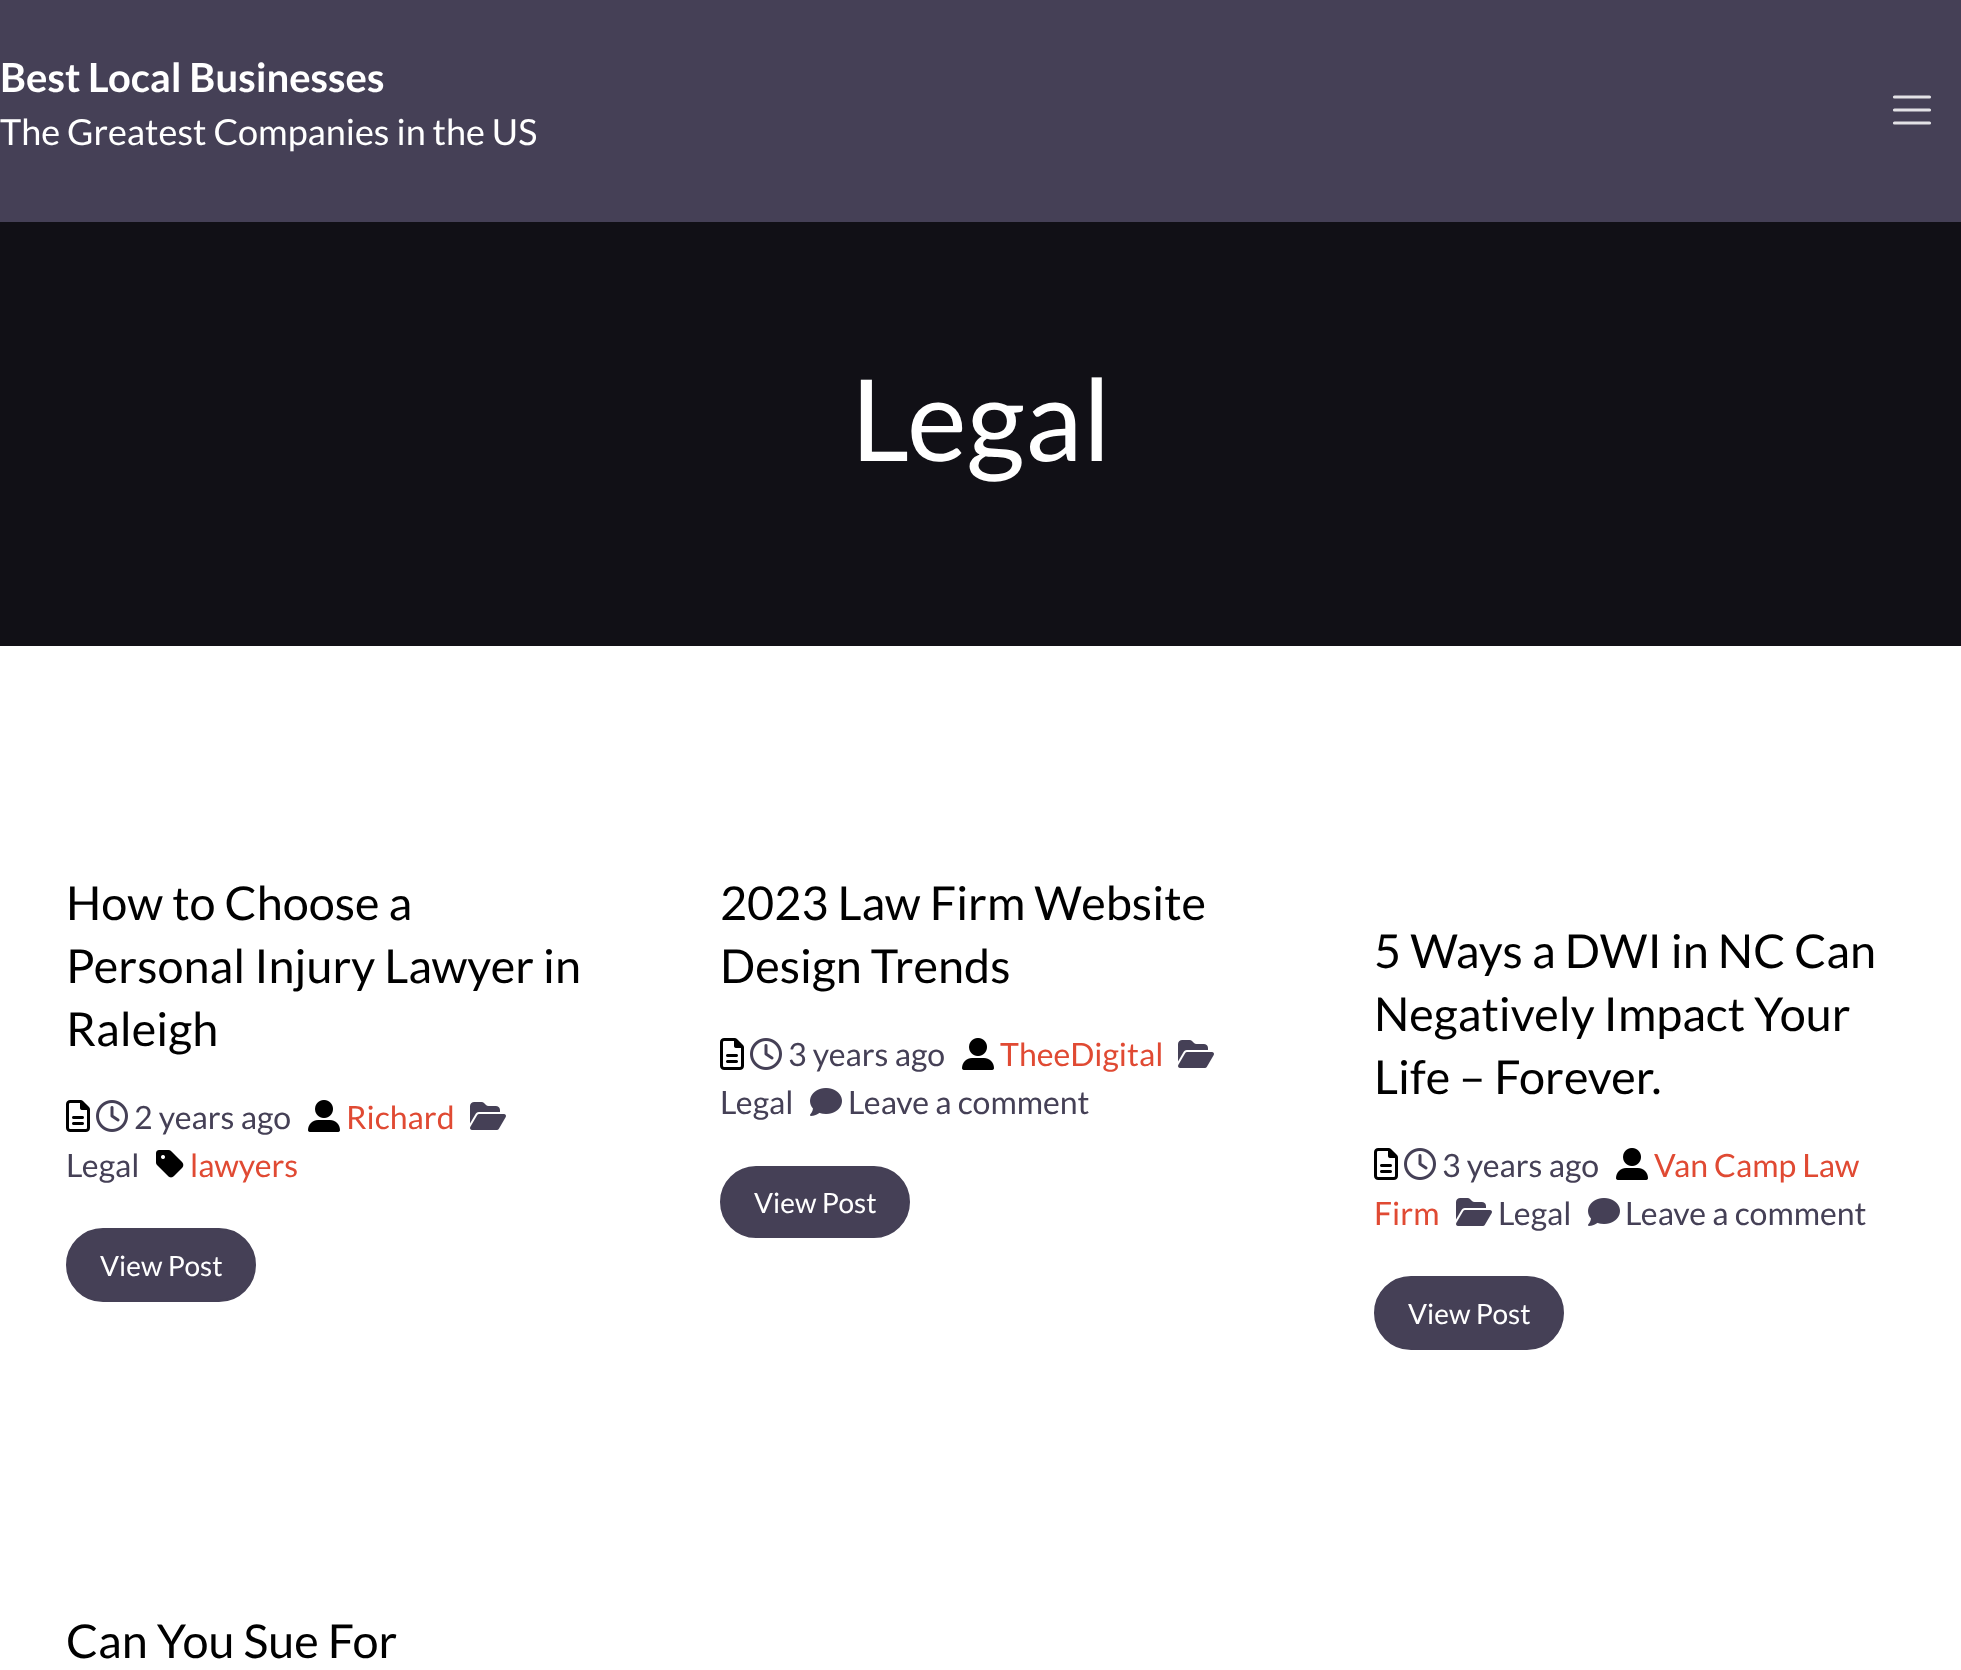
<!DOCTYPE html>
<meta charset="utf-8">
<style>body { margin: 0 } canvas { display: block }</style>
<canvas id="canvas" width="1961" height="1670"></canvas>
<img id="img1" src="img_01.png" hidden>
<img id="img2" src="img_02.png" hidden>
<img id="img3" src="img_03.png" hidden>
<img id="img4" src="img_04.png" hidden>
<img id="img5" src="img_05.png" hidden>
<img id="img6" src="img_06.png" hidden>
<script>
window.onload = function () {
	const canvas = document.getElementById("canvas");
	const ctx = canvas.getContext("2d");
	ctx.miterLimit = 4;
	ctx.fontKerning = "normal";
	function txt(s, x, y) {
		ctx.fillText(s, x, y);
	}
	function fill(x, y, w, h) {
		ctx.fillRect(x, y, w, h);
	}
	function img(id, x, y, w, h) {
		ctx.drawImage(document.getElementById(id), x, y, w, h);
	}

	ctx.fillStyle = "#FFFFFF";
	fill(0, 0, 1961, 1670);
	ctx.fillStyle = "#454056";
	fill(0, 0, 1961, 222);
	ctx.beginPath();
	ctx.moveTo(1894.5, 97);
	ctx.lineTo(1929.5, 97);
	ctx.moveTo(1894.5, 110);
	ctx.lineTo(1929.5, 110);
	ctx.moveTo(1894.5, 123);
	ctx.lineTo(1929.5, 123);
	ctx.strokeStyle = "#E3E2E6";
	ctx.lineWidth = 3.2;
	ctx.lineCap = "round";
	ctx.stroke();
	ctx.fillStyle = "#111016";
	fill(0, 222, 1961, 424);
	img("img1", 66, 1100, 24, 32);
	img("img2", 96, 1100, 32, 32);
	img("img3", 308, 1100, 32, 32);
	img("img4", 470, 1102, 36, 28);
	img("img5", 156, 1150, 28, 28);
	ctx.fillStyle = "#454056";
	ctx.beginPath();
	ctx.roundRect(67, 1229, 188, 72, 36);
	ctx.fill();
	ctx.strokeStyle = "#454056";
	ctx.lineWidth = 2;
	ctx.stroke();
	img("img1", 720, 1038, 24, 32);
	img("img2", 750, 1038, 32, 32);
	img("img3", 962, 1038, 32, 32);
	img("img4", 1178, 1040, 36, 28);
	img("img6", 810, 1088, 32, 28);
	ctx.beginPath();
	ctx.roundRect(721, 1167, 188, 70, 35);
	ctx.fill();
	ctx.stroke();
	img("img3", 1616, 1148, 32, 32);
	img("img1", 1374, 1148, 24, 32);
	img("img2", 1404, 1148, 32, 32);
	img("img4", 1456, 1198, 36, 28);
	img("img6", 1588, 1198, 32, 28);
	ctx.beginPath();
	ctx.roundRect(1375, 1277, 188, 72, 36);
	ctx.fill();
	ctx.stroke();
	ctx.font = "bold 40px Lato";
	ctx.fillStyle = "#FFFFFF";
	txt("Best Local Businesses", 0, 92);
	ctx.font = "36px Lato";
	txt("The Greatest Companies in the US", 0, 145);
	ctx.font = "113.5px Lato";
	txt("Legal", 851, 461);
	ctx.font = "46.75px Lato";
	ctx.fillStyle = "#000000";
	txt("How to Choose a", 66, 920);
	txt("Personal Injury Lawyer in", 66, 983);
	txt("Raleigh", 66, 1046);
	ctx.font = "32px Lato";
	ctx.fillStyle = "#454056";
	txt("2 years ago", 134, 1129);
	ctx.fillStyle = "#E04A33";
	txt("Richard", 346, 1129);
	ctx.fillStyle = "#454056";
	txt("Legal", 66, 1177);
	ctx.fillStyle = "#E04A33";
	txt("lawyers", 190, 1177);
	ctx.font = "28px Lato";
	ctx.fillStyle = "#FFFFFF";
	txt("View Post", 100, 1276);
	ctx.font = "46.75px Lato";
	ctx.fillStyle = "#000000";
	txt("2023 Law Firm Website", 720, 920);
	txt("Design Trends", 720, 983);
	ctx.font = "32px Lato";
	ctx.fillStyle = "#454056";
	txt("3 years ago", 788, 1066);
	ctx.fillStyle = "#E04A33";
	txt("TheeDigital", 1000, 1066);
	ctx.fillStyle = "#454056";
	txt("Legal", 720, 1114);
	txt("Leave a comment", 848, 1114);
	ctx.font = "28px Lato";
	ctx.fillStyle = "#FFFFFF";
	txt("View Post", 754, 1213);
	ctx.font = "46.75px Lato";
	ctx.fillStyle = "#000000";
	txt("5 Ways a DWI in NC Can", 1374, 968);
	txt("Negatively Impact Your", 1374, 1031);
	txt("Life – Forever.", 1374, 1094);
	ctx.font = "32px Lato";
	ctx.fillStyle = "#E04A33";
	txt("Van Camp Law", 1654, 1177);
	txt("Firm", 1374, 1225);
	ctx.fillStyle = "#454056";
	txt("3 years ago", 1442, 1177);
	txt("Legal", 1498, 1225);
	txt("Leave a comment", 1625, 1225);
	ctx.font = "28px Lato";
	ctx.fillStyle = "#FFFFFF";
	txt("View Post", 1408, 1324);
	ctx.font = "46.75px Lato";
	ctx.fillStyle = "#000000";
	txt("Can You Sue For", 66, 1658);
};
</script>
